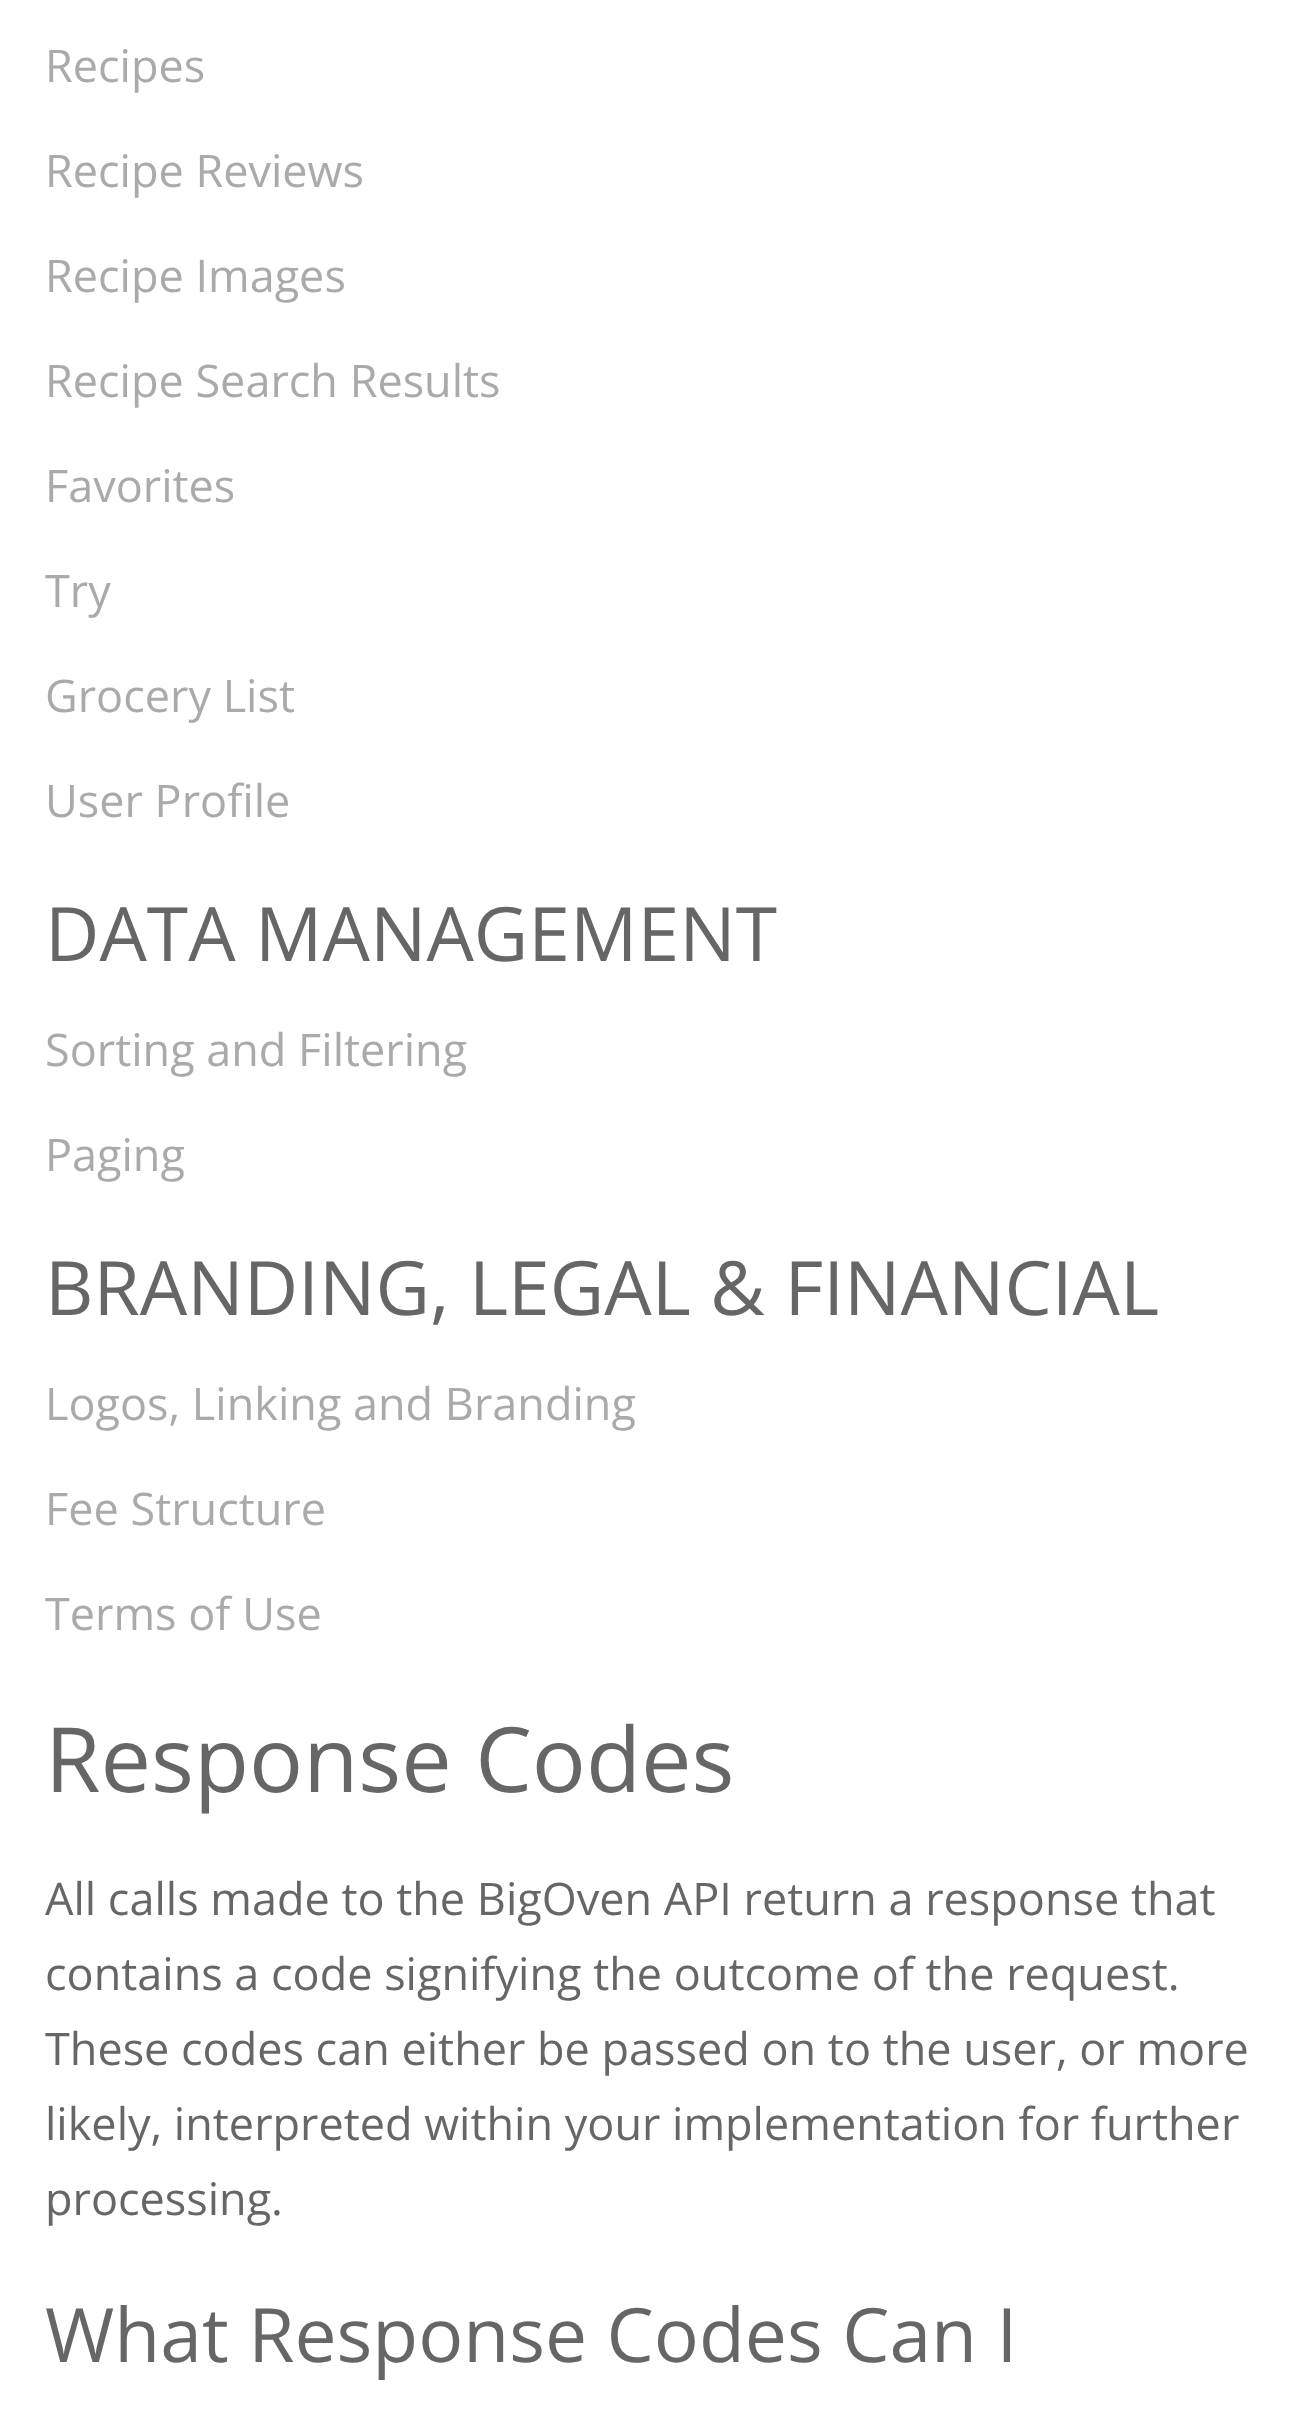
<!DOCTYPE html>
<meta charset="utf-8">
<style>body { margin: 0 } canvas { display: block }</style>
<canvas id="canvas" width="1306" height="2424"></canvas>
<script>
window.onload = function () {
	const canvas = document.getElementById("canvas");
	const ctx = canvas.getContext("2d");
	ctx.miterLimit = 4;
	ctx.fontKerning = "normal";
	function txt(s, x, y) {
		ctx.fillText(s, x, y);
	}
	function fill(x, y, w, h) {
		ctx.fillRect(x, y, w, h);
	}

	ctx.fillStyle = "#FFFFFF";
	fill(0, 0, 1306, 2424);
	ctx.font = "45px Open Sans";
	ctx.fillStyle = "#AAAAAA";
	txt("Recipes", 45, 82);
	txt("Recipe Reviews", 45, 187);
	txt("Recipe Images", 45, 292);
	txt("Recipe Search Results", 45, 397);
	txt("Favorites", 45, 502);
	txt("Try", 45, 607);
	txt("Grocery List", 45, 712);
	txt("User Profile", 45, 817);
	ctx.font = "75px Open Sans";
	ctx.fillStyle = "#666666";
	txt("DATA MANAGEMENT", 45, 961);
	ctx.font = "45px Open Sans";
	ctx.fillStyle = "#AAAAAA";
	txt("Sorting and Filtering", 45, 1066);
	txt("Paging", 45, 1171);
	ctx.font = "75px Open Sans";
	ctx.fillStyle = "#666666";
	txt("BRANDING, LEGAL & FINANCIAL", 45, 1315);
	ctx.font = "45px Open Sans";
	ctx.fillStyle = "#AAAAAA";
	txt("Logos, Linking and Branding", 45, 1420);
	txt("Fee Structure", 45, 1525);
	txt("Terms of Use", 45, 1630);
	ctx.font = "90px Open Sans";
	ctx.fillStyle = "#666666";
	txt("Response Codes", 45, 1792);
	ctx.font = "45px Open Sans";
	txt("All calls made to the BigOven API return a response that", 45, 1915);
	txt("contains a code signifying the outcome of the request.", 45, 1990);
	txt("These codes can either be passed on to the user, or more", 45, 2065);
	txt("likely, interpreted within your implementation for further", 45, 2140);
	txt("processing.", 45, 2215);
	ctx.font = "75px Open Sans";
	txt("What Response Codes Can I", 45, 2362);
};
</script>
